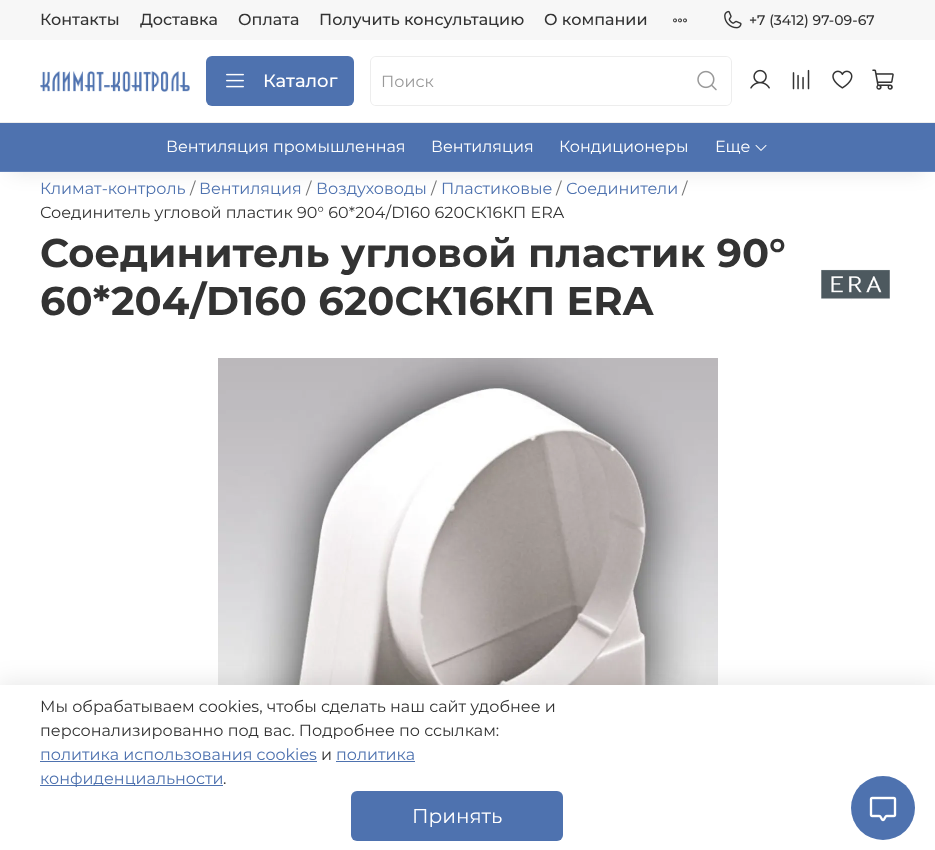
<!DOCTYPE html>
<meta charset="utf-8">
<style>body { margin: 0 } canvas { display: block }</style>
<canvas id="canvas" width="935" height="850"></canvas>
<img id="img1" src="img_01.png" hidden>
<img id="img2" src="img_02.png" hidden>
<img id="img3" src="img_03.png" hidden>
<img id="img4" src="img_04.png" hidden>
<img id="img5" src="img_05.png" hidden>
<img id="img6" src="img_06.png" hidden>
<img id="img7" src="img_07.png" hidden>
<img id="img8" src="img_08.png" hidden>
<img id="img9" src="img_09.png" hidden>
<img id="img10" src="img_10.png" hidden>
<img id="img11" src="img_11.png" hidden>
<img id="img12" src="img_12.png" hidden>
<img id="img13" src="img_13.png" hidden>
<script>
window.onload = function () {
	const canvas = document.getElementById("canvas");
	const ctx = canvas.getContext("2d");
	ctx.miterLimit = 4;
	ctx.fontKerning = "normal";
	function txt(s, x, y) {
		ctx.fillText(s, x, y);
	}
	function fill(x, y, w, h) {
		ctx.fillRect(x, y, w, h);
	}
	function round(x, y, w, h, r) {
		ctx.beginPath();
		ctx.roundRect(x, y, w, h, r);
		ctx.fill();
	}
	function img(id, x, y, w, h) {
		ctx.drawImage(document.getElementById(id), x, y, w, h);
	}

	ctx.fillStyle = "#FFFFFF";
	fill(0, 0, 935, 850);
	ctx.fillStyle = "#F7F7F7";
	fill(0, 0, 935, 40);
	img("img1", 673, 18, 14, 5);
	img("img2", 724, 10, 18, 19);
	ctx.fillStyle = "#EDEDED";
	fill(0, 122, 935, 1);
	img("img3", 40, 71, 150, 21);
	ctx.fillStyle = "#4E72AF";
	round(206, 56, 148, 50, 6);
	img("img4", 226, 73, 18, 15);
	ctx.fillStyle = "#EDEDED";
	ctx.beginPath();
	ctx.moveTo(376, 56);
	ctx.lineTo(682, 56);
	ctx.lineTo(682, 106);
	ctx.lineTo(376, 106);
	ctx.bezierCurveTo(373, 106, 370, 103, 370, 100);
	ctx.lineTo(370, 62);
	ctx.bezierCurveTo(370, 59, 373, 56, 376, 56);
	ctx.closePath();
	ctx.moveTo(376, 57);
	ctx.lineTo(682, 57);
	ctx.lineTo(682, 105);
	ctx.lineTo(376, 105);
	ctx.bezierCurveTo(373, 105, 371, 103, 371, 100);
	ctx.lineTo(371, 62);
	ctx.bezierCurveTo(371, 59, 373, 57, 376, 57);
	ctx.closePath();
	ctx.fill("evenodd");
	ctx.beginPath();
	ctx.moveTo(682, 56);
	ctx.lineTo(726, 56);
	ctx.bezierCurveTo(729, 56, 732, 59, 732, 62);
	ctx.lineTo(732, 100);
	ctx.bezierCurveTo(732, 103, 729, 106, 726, 106);
	ctx.lineTo(682, 106);
	ctx.closePath();
	ctx.moveTo(682, 57);
	ctx.lineTo(726, 57);
	ctx.bezierCurveTo(729, 57, 731, 59, 731, 62);
	ctx.lineTo(731, 100);
	ctx.bezierCurveTo(731, 103, 729, 105, 726, 105);
	ctx.lineTo(682, 105);
	ctx.closePath();
	ctx.fill("evenodd");
	img("img5", 697, 70, 20, 21);
	img("img6", 750, 69, 20, 20);
	img("img7", 792, 69, 18, 21);
	img("img8", 832, 70, 21, 19);
	img("img9", 872, 69, 22, 21);
	ctx.fillStyle = "rgba(0, 0, 0, 0.1)";
	ctx.filter = "blur(10px)";
	ctx.beginPath();
	ctx.rect(10, 143, 915, 29);
	ctx.fill();
	ctx.filter = "none";
	ctx.fillStyle = "#4E72AF";
	fill(0, 123, 935, 48);
	ctx.fillStyle = "#6181B8";
	fill(0, 171, 935, 1);
	img("img10", 755, 145, 12, 6);
	img("img11", 821, 269, 69, 31);
	img("img12", 218, 358, 500, 327);
	ctx.fillStyle = "rgba(0, 0, 0, 0.09)";
	ctx.filter = "blur(11.5px)";
	ctx.beginPath();
	ctx.rect(-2, 682, 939, 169);
	ctx.fill();
	ctx.filter = "none";
	ctx.fillStyle = "#FFFFFF";
	fill(0, 685, 935, 165);
	ctx.fillStyle = "#4E72AF";
	fill(40, 761, 277, 1);
	fill(336, 761, 79, 1);
	fill(40, 785, 183, 1);
	round(351, 791, 212, 50, 6);
	ctx.beginPath();
	ctx.arc(883, 808, 32, 0, Math.PI * 2);
	ctx.fill();
	img("img13", 869, 796, 28, 26);
	ctx.font = "500 16px Montserrat";
	ctx.fillStyle = "#333333";
	txt("Контакты", 40, 25);
	txt("Доставка", 140, 25);
	txt("Оплата", 238, 25);
	txt("Получить консультацию", 319, 25);
	txt("О компании", 544, 25);
	ctx.font = "500 14px Montserrat";
	txt("+7 (3412) 97-09-67", 749, 25);
	ctx.font = "500 18px Montserrat";
	ctx.fillStyle = "#FFFFFF";
	txt("Каталог", 263, 87);
	ctx.font = "16px Montserrat";
	ctx.fillStyle = "#999999";
	txt("Поиск", 381, 87);
	ctx.fillStyle = "#FFFFFF";
	txt("Вентиляция промышленная", 166, 152);
	txt("Вентиляция", 431, 152);
	txt("Кондиционеры", 559, 152);
	txt("Еще", 715, 152);
	ctx.fillStyle = "#4E72AF";
	txt("Климат-контроль", 40, 194);
	ctx.fillStyle = "#707070";
	txt("/", 190, 194);
	ctx.fillStyle = "#4E72AF";
	txt("Вентиляция", 199, 194);
	ctx.fillStyle = "#707070";
	txt("/", 306, 194);
	ctx.fillStyle = "#4E72AF";
	txt("Воздуховоды", 316, 194);
	ctx.fillStyle = "#707070";
	txt("/", 431, 194);
	ctx.fillStyle = "#4E72AF";
	txt("Пластиковые", 441, 194);
	ctx.fillStyle = "#707070";
	txt("/", 556, 194);
	ctx.fillStyle = "#4E72AF";
	txt("Соединители", 566, 194);
	ctx.fillStyle = "#707070";
	txt("/", 682, 194);
	ctx.fillStyle = "#333333";
	txt("Соединитель угловой пластик 90° 60*204/D160 620СК16КП ERA", 40, 218);
	ctx.font = "bold 40px Montserrat";
	txt("Соединитель угловой пластик 90°", 40, 267);
	txt("60*204/D160 620СК16КП ERA", 40, 315);
	ctx.font = "16px Montserrat";
	txt("Мы обрабатываем cookies, чтобы сделать наш сайт удобнее и", 40, 712);
	txt("персонализированно под вас. Подробнее по ссылкам:", 40, 736);
	ctx.fillStyle = "#4E72AF";
	txt("политика использования cookies", 40, 760);
	ctx.fillStyle = "#333333";
	txt("и", 321, 760);
	ctx.fillStyle = "#4E72AF";
	txt("политика", 336, 760);
	txt("конфиденциальности", 40, 784);
	ctx.fillStyle = "#333333";
	txt(".", 223, 784);
	ctx.font = "20px Montserrat";
	ctx.fillStyle = "#FFFFFF";
	txt("Принять", 412, 823);
};
</script>
